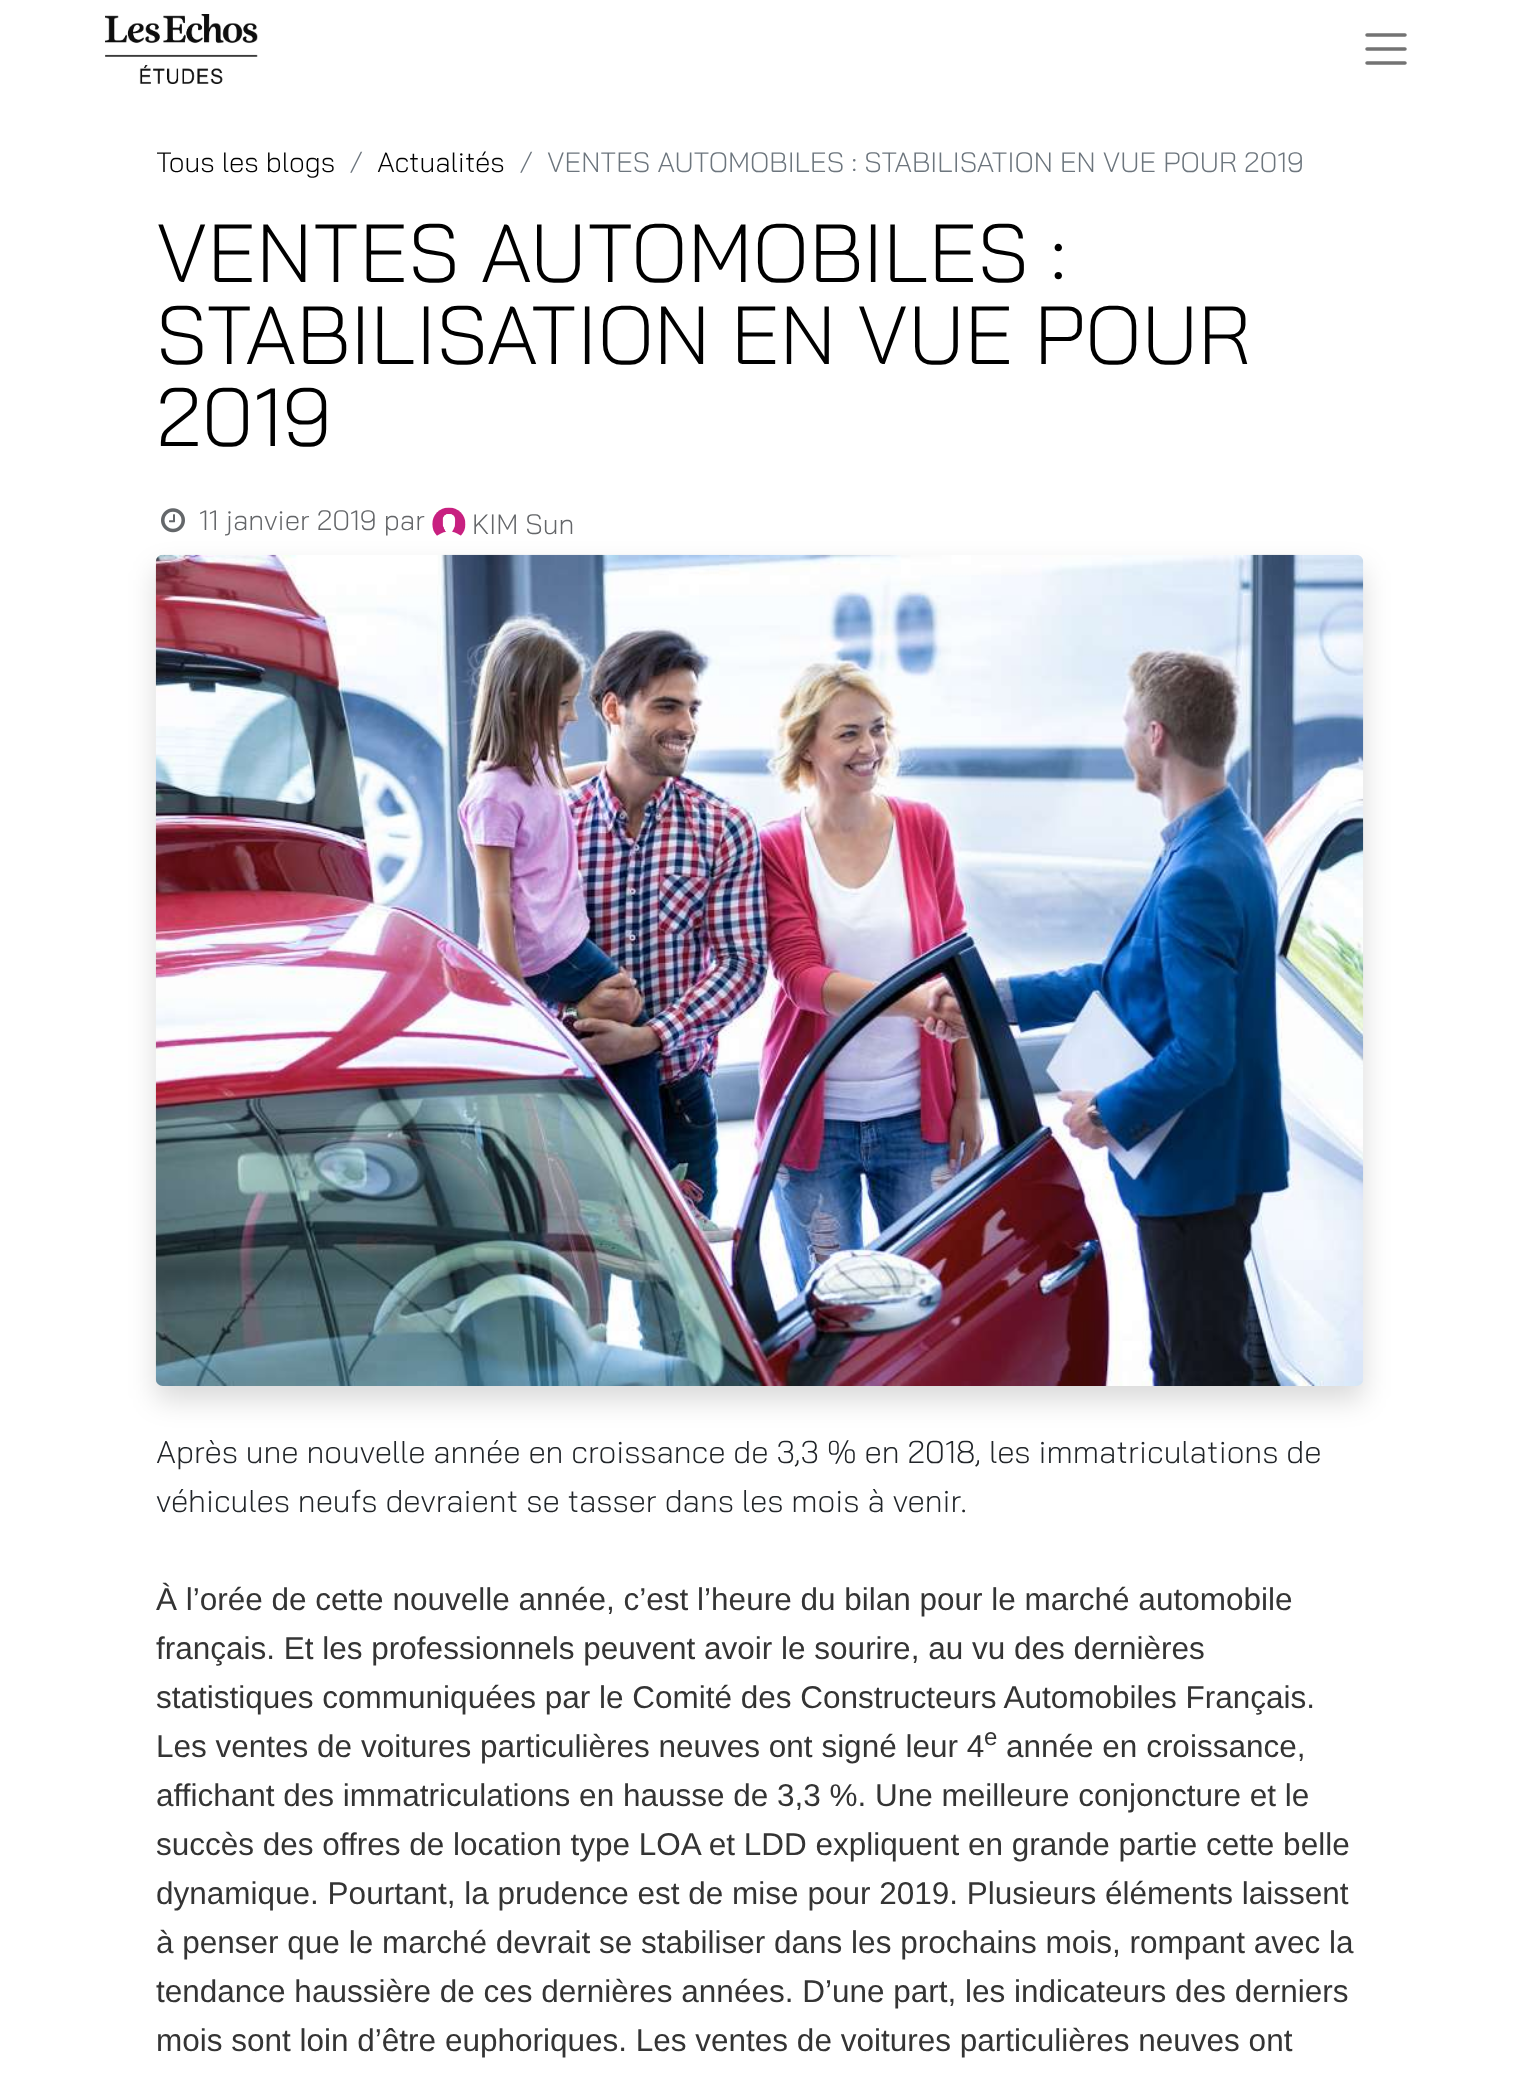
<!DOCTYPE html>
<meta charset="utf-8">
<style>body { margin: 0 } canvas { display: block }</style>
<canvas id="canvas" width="1519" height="2078"></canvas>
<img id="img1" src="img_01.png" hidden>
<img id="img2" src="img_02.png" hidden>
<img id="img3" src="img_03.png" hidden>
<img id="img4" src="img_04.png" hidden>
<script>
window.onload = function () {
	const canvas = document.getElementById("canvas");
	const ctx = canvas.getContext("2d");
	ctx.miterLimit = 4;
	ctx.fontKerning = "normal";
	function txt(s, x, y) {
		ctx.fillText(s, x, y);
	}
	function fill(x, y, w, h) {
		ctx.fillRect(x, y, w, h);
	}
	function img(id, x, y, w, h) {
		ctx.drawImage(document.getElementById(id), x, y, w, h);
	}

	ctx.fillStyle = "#FFFFFF";
	fill(0, 0, 1519, 2078);
	img("img1", 105, 14, 153, 70);
	ctx.beginPath();
	ctx.moveTo(1367, 35);
	ctx.lineTo(1405, 35);
	ctx.moveTo(1367, 49);
	ctx.lineTo(1405, 49);
	ctx.moveTo(1367, 63);
	ctx.lineTo(1405, 63);
	ctx.strokeStyle = "#737373";
	ctx.lineWidth = 3.5;
	ctx.lineCap = "round";
	ctx.stroke();
	img("img2", 161, 508, 24, 25);
	img("img3", 432, 507, 34, 29);
	ctx.fillStyle = "rgba(0, 0, 0, 0.15)";
	ctx.filter = "blur(14px)";
	ctx.beginPath();
	ctx.roundRect(156, 569, 1207, 831, 7);
	ctx.fill();
	ctx.filter = "none";
	img("img4", 155, 554, 1209, 832);
	ctx.font = "300 28px Bai Jamjuree";
	ctx.fillStyle = "#000000";
	txt("Tous les blogs", 156, 172);
	ctx.fillStyle = "#6C757D";
	txt("/", 349, 172);
	ctx.fillStyle = "#000000";
	txt("Actualités", 377, 172);
	ctx.fillStyle = "#6C757D";
	txt("/", 519, 172);
	txt("VENTES AUTOMOBILES : STABILISATION EN VUE POUR 2019", 547, 172);
	ctx.font = "300 82.25px 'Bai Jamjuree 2'";
	ctx.fillStyle = "#000000";
	txt("VENTES AUTOMOBILES :", 156, 282);
	txt("STABILISATION EN VUE POUR", 156, 364);
	txt("2019", 156, 446);
	ctx.font = "300 28px Bai Jamjuree";
	ctx.fillStyle = "#646669";
	txt("11 janvier 2019 par", 199, 530);
	txt("KIM Sun", 472, 534);
	ctx.font = "300 31.5px Bai Jamjuree";
	ctx.fillStyle = "#212529";
	txt("Après une nouvelle année en croissance de 3,3 % en 2018, les immatriculations de", 156, 1463);
	txt("véhicules neufs devraient se tasser dans les mois à venir.", 156, 1512);
	ctx.font = "31.5px Liberation Sans";
	ctx.fillStyle = "#343434";
	txt("À l’orée de cette nouvelle année, c’est l’heure du bilan pour le marché automobile", 156, 1610);
	txt("français. Et les professionnels peuvent avoir le sourire, au vu des dernières", 156, 1659);
	txt("statistiques communiquées par le Comité des Constructeurs Automobiles Français.", 156, 1708);
	txt("Les ventes de voitures particulières neuves ont signé leur 4", 156, 1757);
	ctx.font = "24px Liberation Sans";
	txt("e", 984, 1745);
	ctx.font = "31.5px Liberation Sans";
	txt("année en croissance,", 1006, 1757);
	txt("affichant des immatriculations en hausse de 3,3 %. Une meilleure conjoncture et le", 156, 1806);
	txt("succès des offres de location type LOA et LDD expliquent en grande partie cette belle", 156, 1855);
	txt("dynamique. Pourtant, la prudence est de mise pour 2019. Plusieurs éléments laissent", 156, 1904);
	txt("à penser que le marché devrait se stabiliser dans les prochains mois, rompant avec la", 156, 1953);
	txt("tendance haussière de ces dernières années. D’une part, les indicateurs des derniers", 156, 2002);
	txt("mois sont loin d’être euphoriques. Les ventes de voitures particulières neuves ont", 156, 2051);
};
</script>
